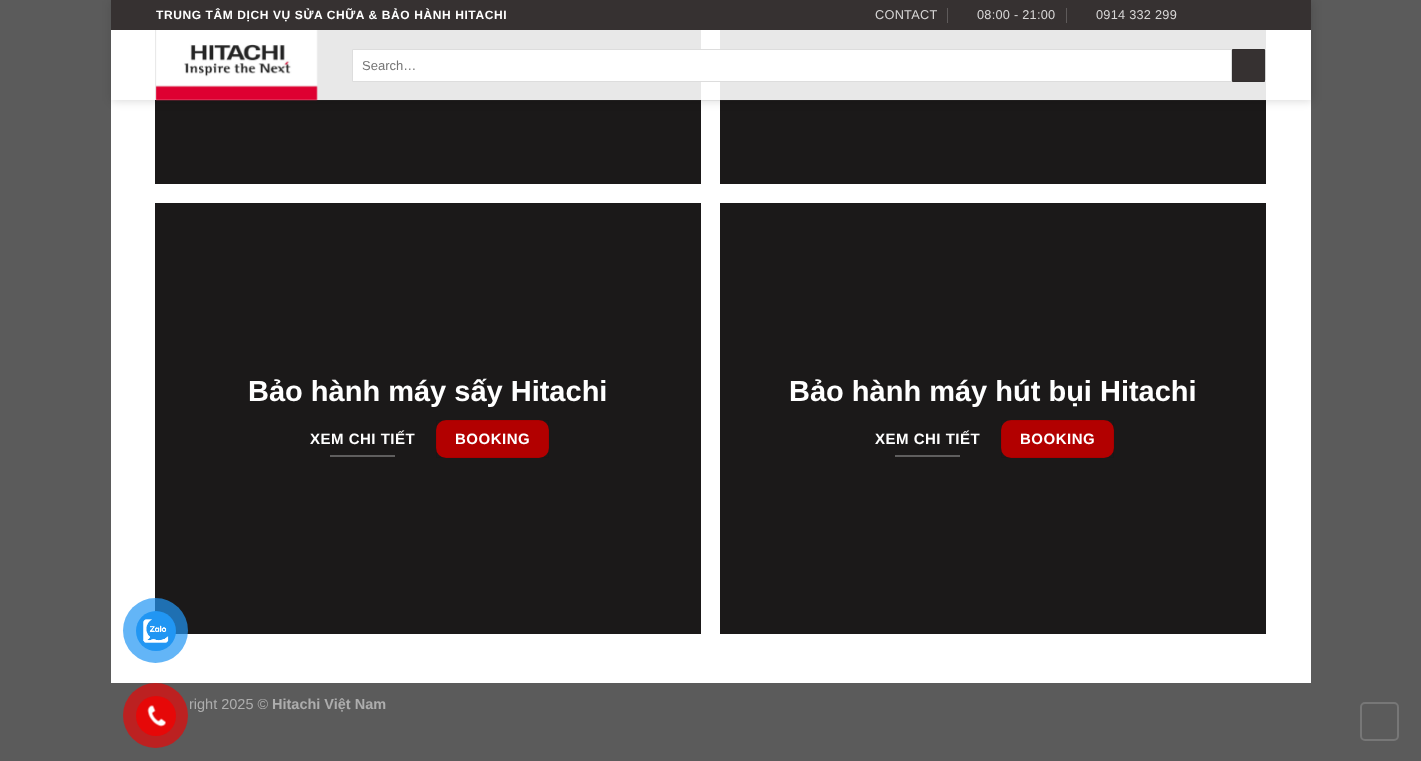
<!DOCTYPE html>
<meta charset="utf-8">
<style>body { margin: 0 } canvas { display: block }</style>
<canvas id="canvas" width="1421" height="761"></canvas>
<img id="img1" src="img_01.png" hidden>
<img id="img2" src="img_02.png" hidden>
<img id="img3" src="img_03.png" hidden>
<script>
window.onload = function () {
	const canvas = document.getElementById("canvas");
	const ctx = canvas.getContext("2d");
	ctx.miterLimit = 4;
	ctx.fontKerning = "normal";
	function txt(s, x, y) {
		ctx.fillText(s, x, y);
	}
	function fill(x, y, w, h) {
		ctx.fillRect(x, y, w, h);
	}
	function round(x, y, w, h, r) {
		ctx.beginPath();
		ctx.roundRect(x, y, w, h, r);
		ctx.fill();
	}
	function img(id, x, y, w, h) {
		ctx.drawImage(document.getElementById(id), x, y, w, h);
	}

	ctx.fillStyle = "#5B5B5B";
	fill(0, 0, 1421, 761);
	ctx.fillStyle = "#FFFFFF";
	fill(111, 30, 1200, 653);
	ctx.fillStyle = "#1B1919";
	fill(155, 100, 546, 84);
	ctx.fillStyle = "#E8E8E8";
	fill(155, 30, 546, 70);
	ctx.fillStyle = "#1B1919";
	fill(720, 100, 546, 84);
	ctx.fillStyle = "#E8E8E8";
	fill(720, 30, 546, 70);
	ctx.save();
	ctx.beginPath();
	ctx.moveTo(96, 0);
	ctx.lineTo(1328, 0);
	ctx.lineTo(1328, 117);
	ctx.lineTo(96, 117);
	ctx.closePath();
	ctx.moveTo(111, 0);
	ctx.lineTo(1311, 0);
	ctx.lineTo(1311, 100);
	ctx.lineTo(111, 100);
	ctx.closePath();
	ctx.clip("evenodd");
	ctx.fillStyle = "rgba(0, 0, 0, 0.15)";
	ctx.filter = "blur(5px)";
	ctx.beginPath();
	ctx.rect(112, 1, 1200, 100);
	ctx.fill();
	ctx.filter = "none";
	ctx.restore();
	ctx.fillStyle = "#363131";
	fill(111, 0, 1200, 30);
	ctx.fillStyle = "#5E5A5A";
	fill(947, 8, 1, 15);
	fill(1066, 8, 1, 15);
	img("img1", 155, 30, 163, 71);
	ctx.fillStyle = "#FFFFFF";
	ctx.beginPath();
	ctx.rect(352.5, 49.5, 879, 32);
	ctx.fill();
	ctx.strokeStyle = "#DDDDDD";
	ctx.stroke();
	ctx.fillStyle = "#363131";
	ctx.beginPath();
	ctx.rect(1232.5, 49.5, 32, 32);
	ctx.fill();
	ctx.strokeStyle = "#332F2F";
	ctx.stroke();
	ctx.fillStyle = "#D1D1D1";
	fill(1265, 50, 1, 30);
	ctx.fillStyle = "rgba(119, 119, 119, 0.1)";
	fill(156, 100, 1110, 1);
	ctx.fillStyle = "#1B1919";
	fill(155, 203, 546, 431);
	ctx.fillStyle = "#5F5E5E";
	fill(330, 455, 65, 2);
	ctx.fillStyle = "#B20000";
	round(436, 420, 113, 38, 10);
	ctx.strokeStyle = "rgba(0, 0, 0, 0.05)";
	ctx.strokeRect(436.5, 420.5, 112, 37);
	ctx.fillStyle = "#1B1919";
	fill(720, 203, 546, 431);
	ctx.fillStyle = "#5F5E5E";
	fill(895, 455, 65, 2);
	ctx.fillStyle = "#B20000";
	round(1001, 420, 113, 38, 10);
	ctx.strokeRect(1001.5, 420.5, 112, 37);
	ctx.beginPath();
	ctx.roundRect(1361, 703, 37, 37, 4);
	ctx.strokeStyle = "#777777";
	ctx.lineWidth = 2;
	ctx.stroke();
	ctx.fillStyle = "rgba(33, 150, 243, 0.7)";
	ctx.beginPath();
	ctx.arc(155.5, 630.5, 32.5, 0, Math.PI * 2);
	ctx.fill();
	ctx.fillStyle = "#2196F3";
	ctx.beginPath();
	ctx.arc(156, 631, 20, 0, Math.PI * 2);
	ctx.fill();
	img("img2", 143, 619, 26, 24);
	ctx.fillStyle = "rgba(230, 8, 8, 0.7)";
	ctx.beginPath();
	ctx.arc(155.5, 715.5, 32.5, 0, Math.PI * 2);
	ctx.fill();
	ctx.fillStyle = "#E60808";
	ctx.beginPath();
	ctx.arc(156, 716, 20, 0, Math.PI * 2);
	ctx.fill();
	img("img3", 147, 705, 19, 22);
	ctx.letterSpacing = "0.6px";
	ctx.font = "bold 12px Liberation Sans";
	ctx.fillStyle = "#FFFFFF";
	txt("TRUNG TÂM DỊCH VỤ SỬA CHỮA & BẢO HÀNH HITACHI", 156, 19);
	ctx.letterSpacing = "0.25px";
	ctx.font = "12.75px Liberation Sans";
	ctx.fillStyle = "#D7D6D6";
	txt("CONTACT", 875, 19);
	txt("08:00 - 21:00", 977, 19);
	txt("0914 332 299", 1096, 19);
	ctx.letterSpacing = "0px";
	ctx.font = "13px Liberation Sans";
	ctx.fillStyle = "#757575";
	txt("Search…", 362, 70);
	ctx.font = "bold 29px Liberation Sans";
	ctx.fillStyle = "#FFFFFF";
	txt("Bảo hành máy sấy Hitachi", 248, 401);
	ctx.letterSpacing = "0.5px";
	ctx.font = "bold 15px Liberation Sans";
	txt("XEM CHI TIẾT", 310, 444);
	txt("BOOKING", 455, 444);
	ctx.letterSpacing = "0px";
	ctx.font = "bold 29px Liberation Sans";
	txt("Bảo hành máy hút bụi Hitachi", 789, 401);
	ctx.letterSpacing = "0.5px";
	ctx.font = "bold 15px Liberation Sans";
	txt("XEM CHI TIẾT", 875, 444);
	txt("BOOKING", 1020, 444);
	ctx.letterSpacing = "0px";
	ctx.font = "14.5px Liberation Sans";
	ctx.fillStyle = "#ADADAD";
	txt("right 2025 ©", 189, 709);
	ctx.font = "bold 14.5px Liberation Sans";
	txt("Hitachi Việt Nam", 272, 709);
};
</script>
